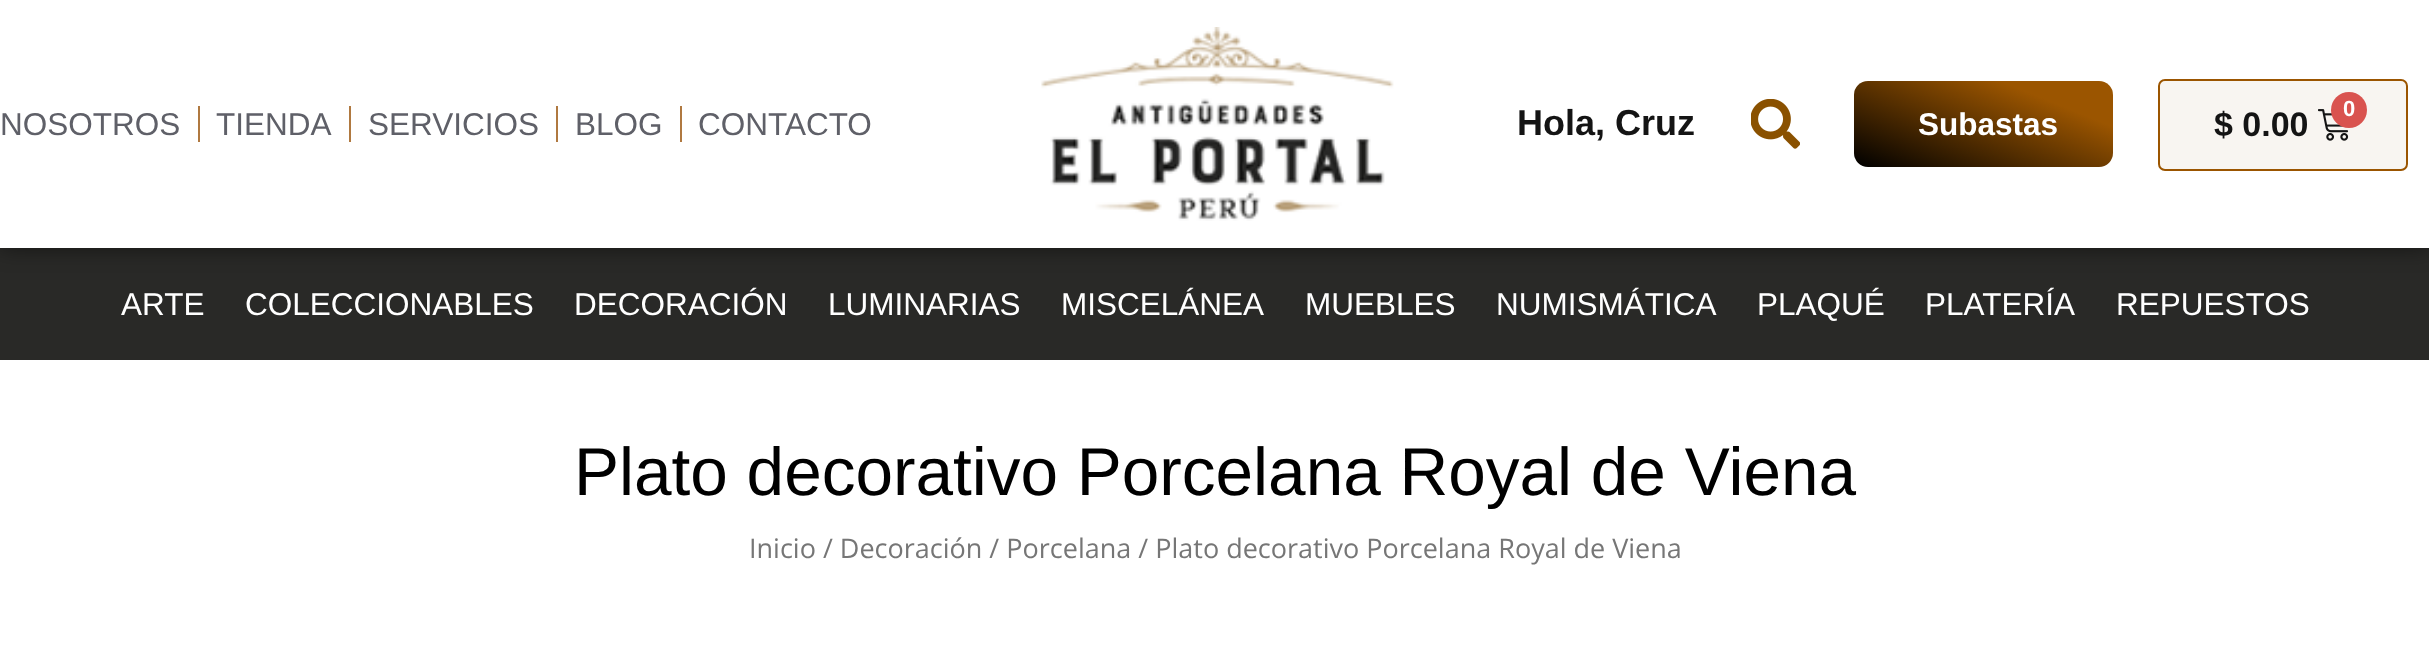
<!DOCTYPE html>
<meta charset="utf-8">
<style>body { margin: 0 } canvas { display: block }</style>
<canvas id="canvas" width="2429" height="655"></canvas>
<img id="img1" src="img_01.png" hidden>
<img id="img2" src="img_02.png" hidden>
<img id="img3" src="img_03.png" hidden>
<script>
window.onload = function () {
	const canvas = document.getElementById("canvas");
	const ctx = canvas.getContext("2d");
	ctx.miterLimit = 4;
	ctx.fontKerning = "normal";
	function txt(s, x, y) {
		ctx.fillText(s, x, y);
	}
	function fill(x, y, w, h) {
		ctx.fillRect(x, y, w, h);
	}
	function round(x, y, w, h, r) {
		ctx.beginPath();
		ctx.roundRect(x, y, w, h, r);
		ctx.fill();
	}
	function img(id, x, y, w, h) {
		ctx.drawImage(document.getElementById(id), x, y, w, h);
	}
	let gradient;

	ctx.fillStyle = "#FFFFFF";
	fill(0, 0, 2429, 655);
	ctx.fillStyle = "#292927";
	fill(0, 248, 2429, 112);
	ctx.fillStyle = "rgba(0, 0, 0, 0.5)";
	ctx.filter = "blur(11px)";
	ctx.beginPath();
	ctx.rect(0, 0, 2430, 248);
	ctx.fill();
	ctx.filter = "none";
	ctx.fillStyle = "#FFFFFF";
	fill(0, 0, 2429, 248);
	ctx.fillStyle = "#B07940";
	fill(198, 106, 2, 36);
	fill(349, 106, 2, 36);
	fill(556, 106, 2, 36);
	fill(680, 106, 2, 36);
	img("img1", 1041, 27, 353, 194);
	img("img2", 1751, 99, 49, 50);
	gradient = ctx.createLinearGradient(2016, 42, 1950, 205);
	gradient.addColorStop(0.24, "#9B5500");
	gradient.addColorStop(1, "#000000");
	ctx.fillStyle = gradient;
	round(1854, 81, 259, 86, 14);
	ctx.fillStyle = "#F8F5F1";
	ctx.beginPath();
	ctx.roundRect(2159, 80, 248, 90, 6);
	ctx.fill();
	ctx.strokeStyle = "#9B5500";
	ctx.lineWidth = 2;
	ctx.stroke();
	img("img3", 2318, 109, 31, 32);
	ctx.fillStyle = "#D9534F";
	ctx.beginPath();
	ctx.arc(2349, 110, 18, 0, Math.PI * 2);
	ctx.fill();
	ctx.font = "31.5px Liberation Sans";
	ctx.fillStyle = "#5F6068";
	txt("NOSOTROS", 0, 135);
	txt("TIENDA", 216, 135);
	txt("SERVICIOS", 368, 135);
	txt("BLOG", 575, 135);
	txt("CONTACTO", 698, 135);
	ctx.font = "bold 36px Liberation Sans";
	ctx.fillStyle = "#141414";
	txt("Hola, Cruz", 1517, 135);
	ctx.font = "bold 31.5px Liberation Sans";
	ctx.fillStyle = "#FFFFFF";
	txt("Subastas", 1918, 135);
	ctx.font = "bold 34px Liberation Sans";
	ctx.fillStyle = "#141414";
	txt("$ 0.00", 2214, 136);
	ctx.font = "bold 22px Liberation Sans";
	ctx.fillStyle = "#FFFFFF";
	txt("0", 2343, 116);
	ctx.font = "31.5px Liberation Sans";
	txt("ARTE", 121, 315);
	txt("COLECCIONABLES", 245, 315);
	txt("DECORACIÓN", 574, 315);
	txt("LUMINARIAS", 828, 315);
	txt("MISCELÁNEA", 1061, 315);
	txt("MUEBLES", 1305, 315);
	txt("NUMISMÁTICA", 1496, 315);
	txt("PLAQUÉ", 1757, 315);
	txt("PLATERÍA", 1925, 315);
	txt("REPUESTOS", 2116, 315);
	ctx.font = "67.5px Liberation Sans";
	ctx.fillStyle = "#000000";
	txt("Plato decorativo Porcelana Royal de Viena", 574, 495);
	ctx.font = "27px Open Sans";
	ctx.fillStyle = "#767676";
	txt("Inicio / Decoración / Porcelana / Plato decorativo Porcelana Royal de Viena", 749, 558);
};
</script>
